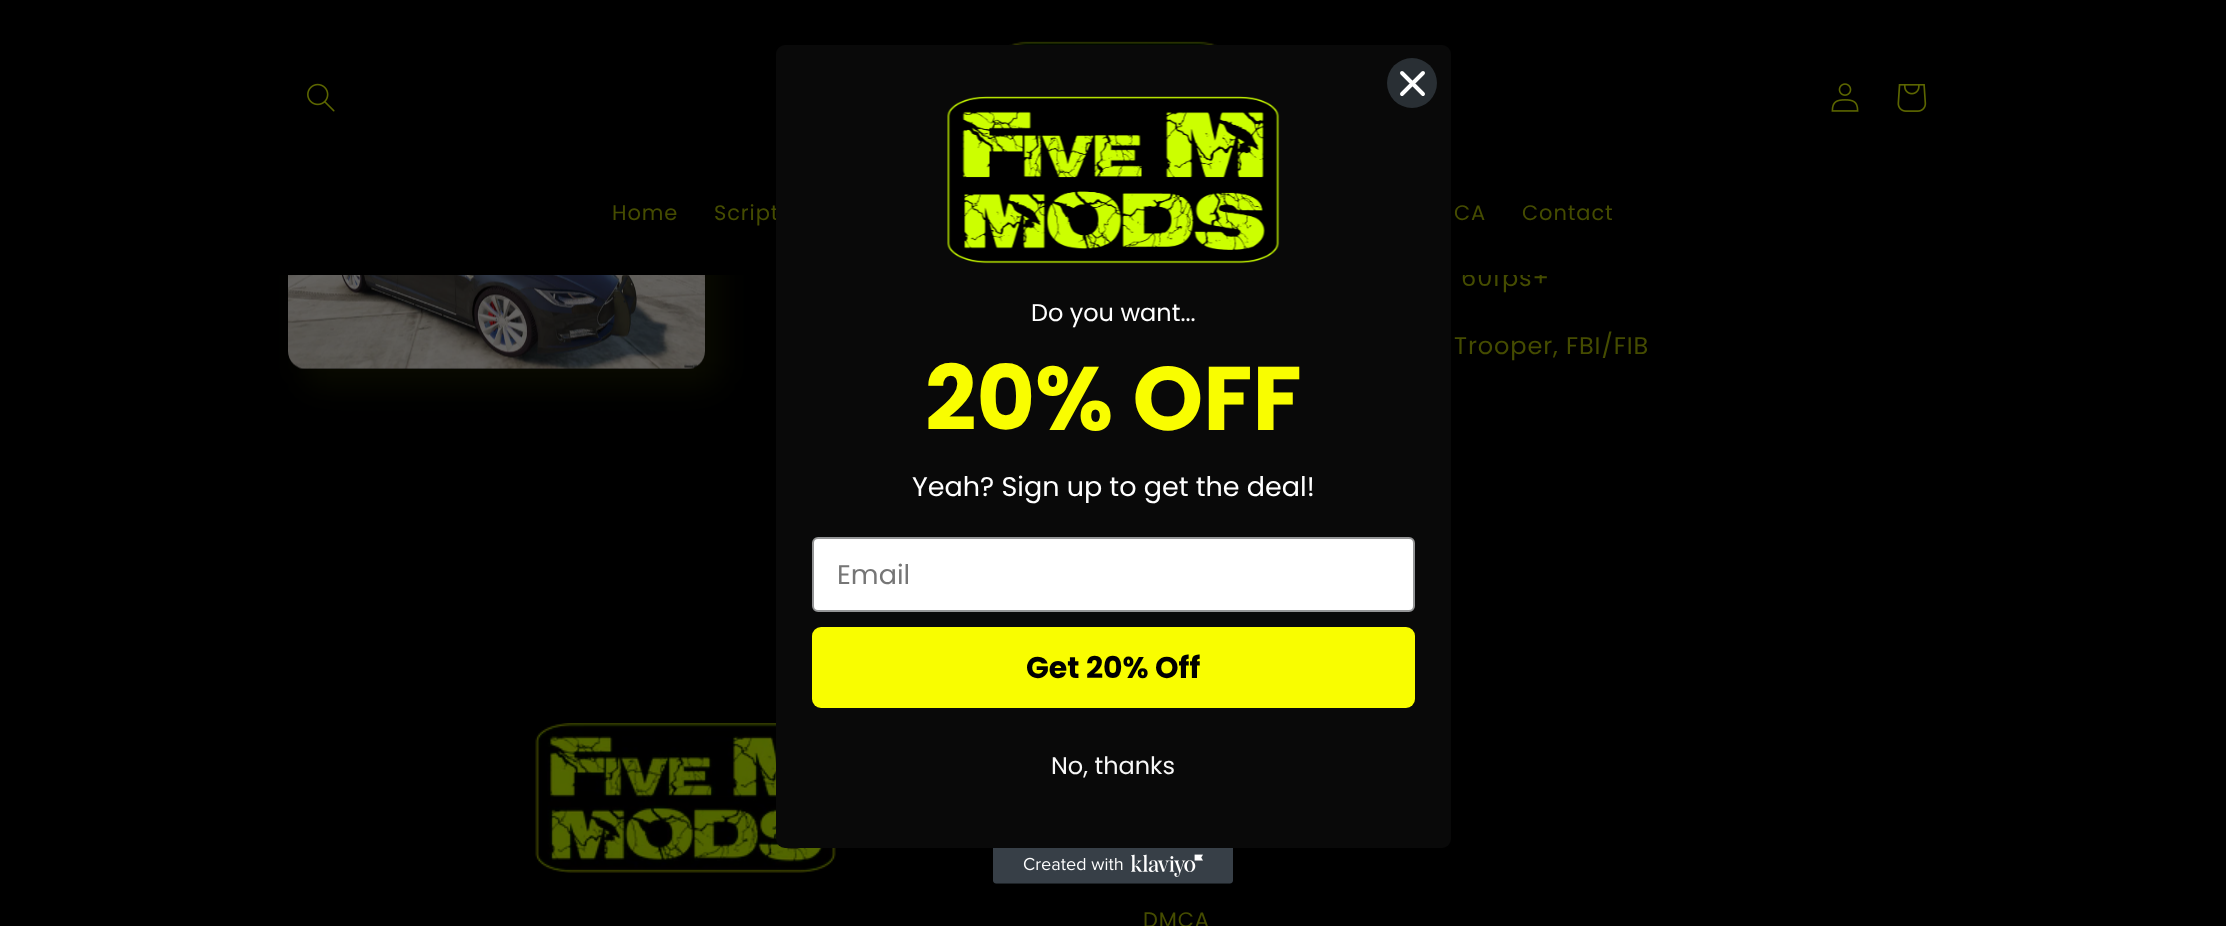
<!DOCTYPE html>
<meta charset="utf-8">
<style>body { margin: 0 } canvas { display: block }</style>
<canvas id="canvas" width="2226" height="926"></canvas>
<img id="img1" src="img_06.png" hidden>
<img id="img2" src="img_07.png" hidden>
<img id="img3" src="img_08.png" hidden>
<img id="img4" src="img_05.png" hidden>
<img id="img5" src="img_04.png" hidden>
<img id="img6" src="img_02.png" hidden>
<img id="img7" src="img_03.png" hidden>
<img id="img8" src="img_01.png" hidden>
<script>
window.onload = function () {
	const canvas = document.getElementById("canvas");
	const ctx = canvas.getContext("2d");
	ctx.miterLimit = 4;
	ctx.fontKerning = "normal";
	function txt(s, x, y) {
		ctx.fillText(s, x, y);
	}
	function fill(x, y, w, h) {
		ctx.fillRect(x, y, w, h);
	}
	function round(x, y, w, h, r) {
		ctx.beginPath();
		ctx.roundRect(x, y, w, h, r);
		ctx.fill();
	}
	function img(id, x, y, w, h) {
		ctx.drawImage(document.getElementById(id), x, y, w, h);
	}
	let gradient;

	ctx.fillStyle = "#FFFFFF";
	fill(0, 0, 2226, 926);
	gradient = ctx.createLinearGradient(344, -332, 1882, 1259);
	gradient.addColorStop(1, "#000000");
	gradient.addColorStop(1, "#605E5A");
	ctx.fillStyle = gradient;
	fill(0, 275, 2226, 651);
	img("img1", 993, 848, 240, 36);
	ctx.fillStyle = "rgba(92, 102, 0, 0.1)";
	ctx.filter = "blur(15px)";
	ctx.beginPath();
	ctx.roundRect(303, 152, 417, 235, 18);
	ctx.fill();
	ctx.filter = "none";
	gradient = ctx.createLinearGradient(344, -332, 1882, 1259);
	gradient.addColorStop(1, "#000000");
	gradient.addColorStop(1, "#605E5A");
	ctx.fillStyle = gradient;
	round(288, 134, 417, 235, 18);
	img("img2", 288, 275, 417, 94);
	img("img3", 535, 723, 301, 150);
	ctx.letterSpacing = "0.9px";
	ctx.font = "24px Poppins";
	ctx.fillStyle = "#454C00";
	txt("60fps+", 1461, 286);
	ctx.fillStyle = "#000000";
	fill(0, 0, 2226, 275);
	ctx.font = "21px Poppins";
	ctx.fillStyle = "#454C00";
	txt("Script", 714, 220);
	ctx.fillStyle = "#090909";
	round(776, 45, 675, 803, 9);
	ctx.fillStyle = "#292F34";
	ctx.beginPath();
	ctx.arc(1412, 83, 25, 0, Math.PI * 2);
	ctx.fill();
	ctx.beginPath();
	ctx.moveTo(1402, 73);
	ctx.lineTo(1423, 94);
	ctx.moveTo(1402, 94);
	ctx.lineTo(1423, 73);
	ctx.closePath();
	ctx.strokeStyle = "#FFFFFF";
	ctx.lineWidth = 3.9;
	ctx.lineCap = "round";
	ctx.lineJoin = "round";
	ctx.stroke();
	ctx.letterSpacing = "0px";
	ctx.font = "24px 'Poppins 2'";
	ctx.fillStyle = "#F8F8F8";
	txt("No, thanks", 1051, 774);
	ctx.fillStyle = "#F9FD00";
	round(812, 627, 603, 81, 9);
	ctx.font = "bold 30px Poppins";
	ctx.fillStyle = "#000000";
	txt("Get 20% Off", 1026, 678);
	ctx.fillStyle = "#FFFFFF";
	ctx.beginPath();
	ctx.roundRect(813, 538, 601, 73, 5);
	ctx.fill();
	ctx.strokeStyle = "#949596";
	ctx.lineWidth = 2;
	ctx.lineJoin = "miter";
	ctx.stroke();
	ctx.font = "27px 'Poppins 2'";
	ctx.fillStyle = "#767676";
	txt("Email", 837, 584);
	ctx.fillStyle = "#FFFFFF";
	txt("Yeah? Sign up to get the deal!", 912, 496);
	ctx.font = "bold 90px Poppins";
	ctx.fillStyle = "#F9FD00";
	txt("20% OFF", 925, 430);
	ctx.font = "24px 'Poppins 2'";
	ctx.fillStyle = "#FFFFFF";
	txt("Do you want...", 1031, 321);
	img("img4", 947, 96, 333, 168);
	img("img5", 1897, 84, 30, 28);
	img("img6", 307, 83, 28, 29);
	img("img7", 1831, 83, 28, 29);
	ctx.letterSpacing = "0.9px";
	ctx.font = "21px Poppins";
	ctx.fillStyle = "#454C00";
	txt("Contact", 1522, 220);
	txt("CA", 1454, 220);
	txt("Home", 612, 220);
	img("img8", 1009, 41, 208, 4);
	ctx.font = "24px Poppins";
	txt("Trooper, FBI/FIB", 1454, 354);
	ctx.font = "21px Poppins";
	txt("DMCA", 1143, 927);
};
</script>
